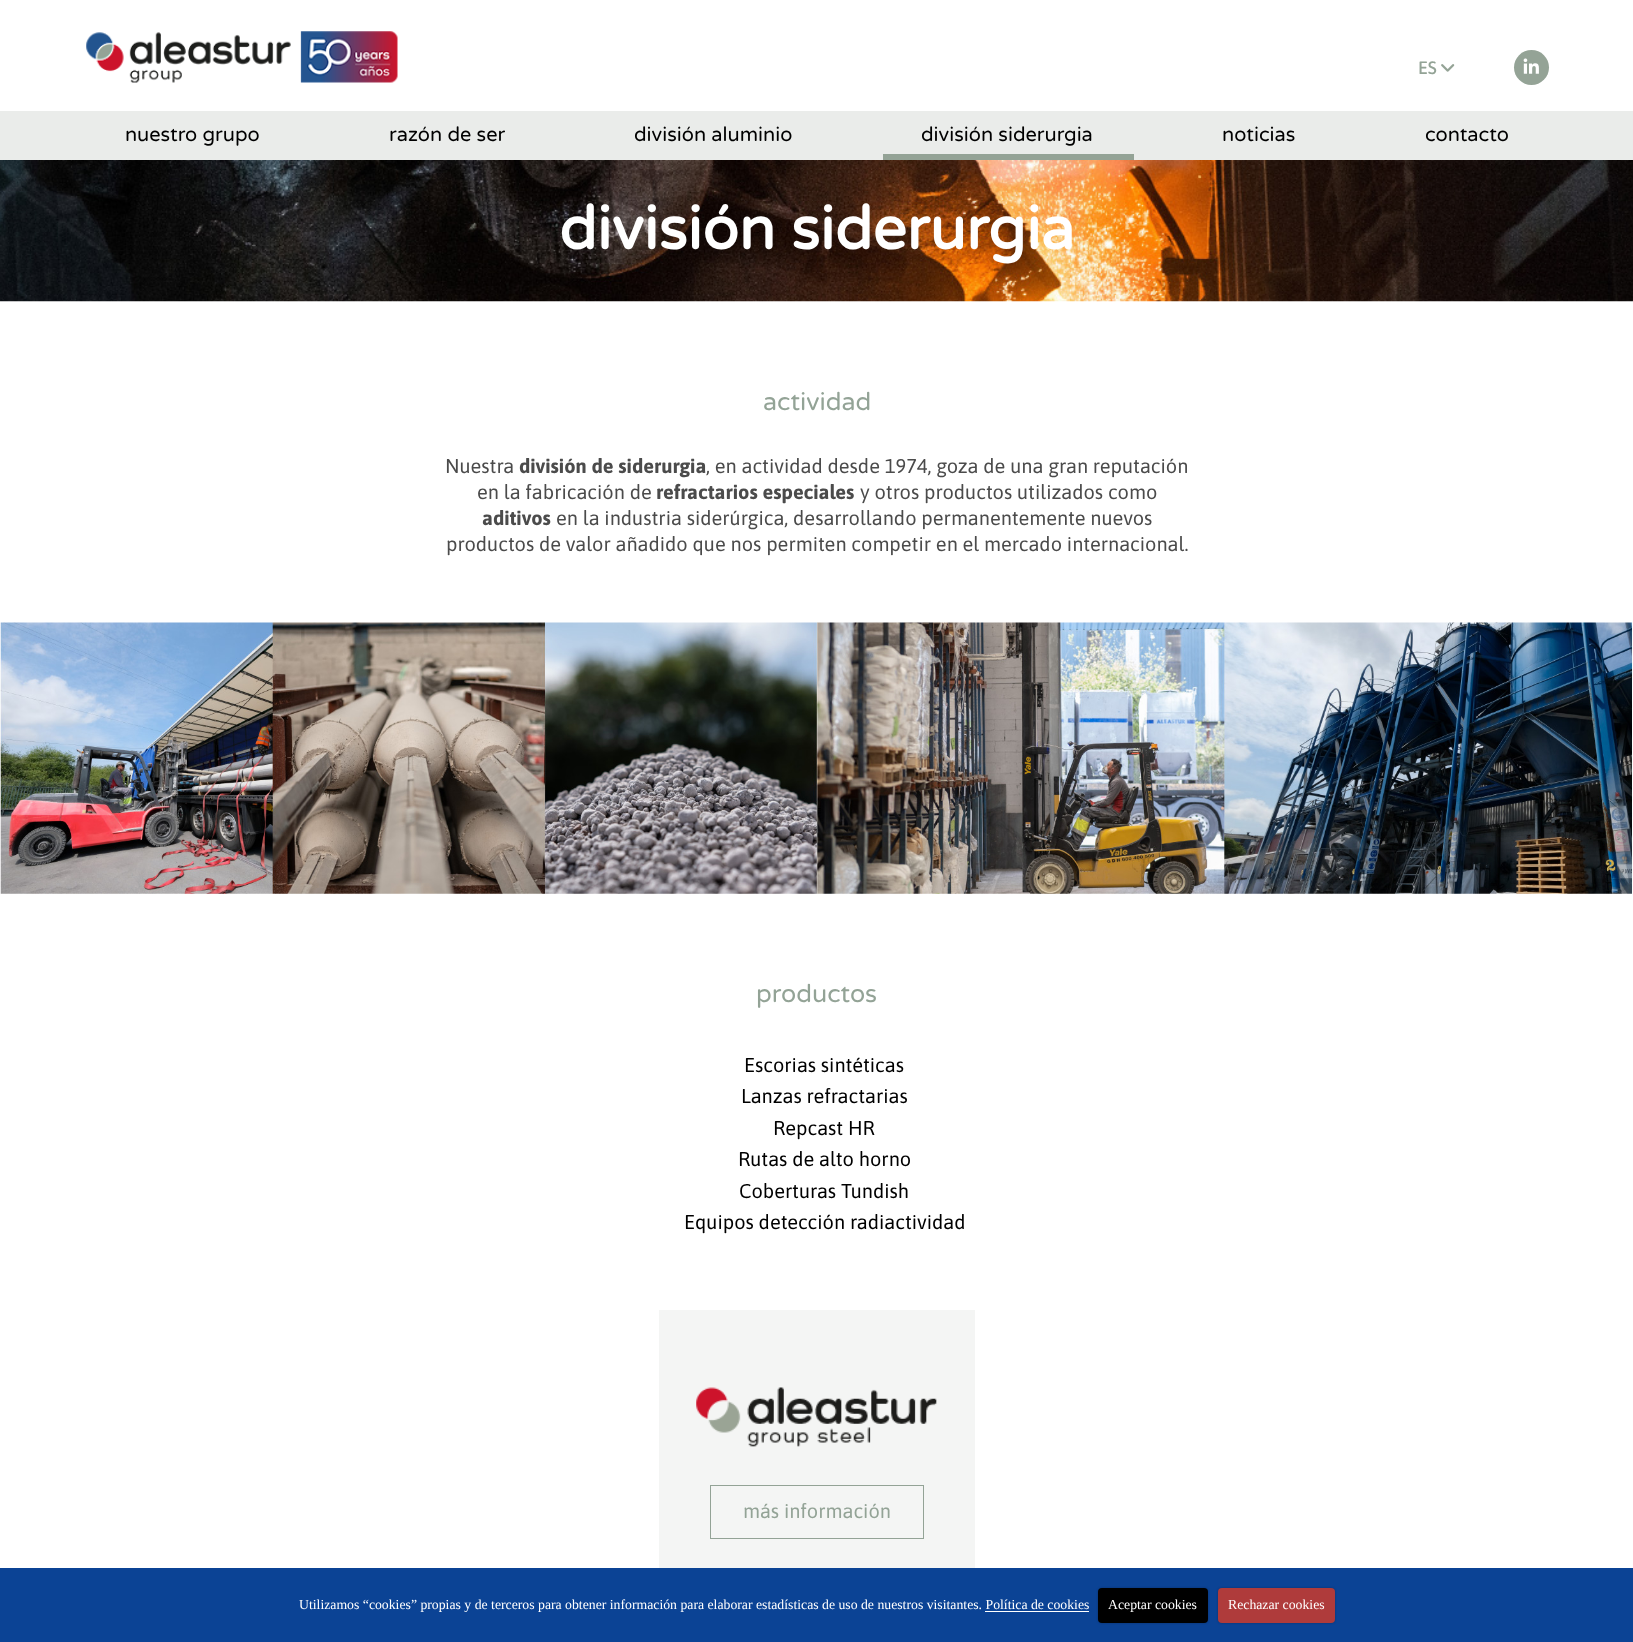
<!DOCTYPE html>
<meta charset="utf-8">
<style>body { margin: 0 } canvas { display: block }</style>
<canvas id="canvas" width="1633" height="1642"></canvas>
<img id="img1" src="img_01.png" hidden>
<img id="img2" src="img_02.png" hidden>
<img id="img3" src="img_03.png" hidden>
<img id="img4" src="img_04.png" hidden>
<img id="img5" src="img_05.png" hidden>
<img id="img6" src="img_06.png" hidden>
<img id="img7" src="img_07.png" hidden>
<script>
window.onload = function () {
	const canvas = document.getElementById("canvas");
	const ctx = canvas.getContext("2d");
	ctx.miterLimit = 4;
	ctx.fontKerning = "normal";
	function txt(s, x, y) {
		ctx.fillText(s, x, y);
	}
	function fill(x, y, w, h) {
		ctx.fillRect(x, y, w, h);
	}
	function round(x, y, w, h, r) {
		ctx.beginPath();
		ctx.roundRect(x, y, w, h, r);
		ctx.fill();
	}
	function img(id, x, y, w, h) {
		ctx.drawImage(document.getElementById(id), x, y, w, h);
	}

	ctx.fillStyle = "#FFFFFF";
	fill(0, 0, 1633, 1642);
	img("img1", 86, 31, 312, 52);
	img("img2", 1441, 64, 14, 8);
	ctx.fillStyle = "#94A396";
	ctx.beginPath();
	ctx.arc(1531.5, 67.5, 17.5, 0, Math.PI * 2);
	ctx.fill();
	img("img3", 1523, 58, 16, 16);
	ctx.fillStyle = "#EAECEA";
	fill(0, 111, 1633, 49);
	ctx.fillStyle = "#94A396";
	fill(883, 154, 251, 6);
	img("img4", 0, 160, 1633, 142);
	img("img5", 0, 622, 818, 272);
	img("img6", 817, 622, 816, 272);
	ctx.fillStyle = "#F4F5F4";
	fill(659, 1310, 316, 258);
	img("img7", 696, 1387, 241, 60);
	ctx.strokeStyle = "#93A396";
	ctx.strokeRect(710.5, 1485.5, 213, 53);
	ctx.fillStyle = "#0B4395";
	fill(0, 1568, 1633, 74);
	ctx.fillStyle = "rgba(0, 0, 0, 0.25)";
	ctx.filter = "blur(1px)";
	ctx.beginPath();
	ctx.roundRect(1098, 1588, 110, 35, 4);
	ctx.fill();
	ctx.filter = "none";
	ctx.fillStyle = "#000000";
	round(1098, 1588, 110, 35, 4);
	ctx.fillStyle = "rgba(0, 0, 0, 0.25)";
	ctx.filter = "blur(1px)";
	ctx.beginPath();
	ctx.roundRect(1218, 1588, 117, 35, 4);
	ctx.fill();
	ctx.filter = "none";
	ctx.fillStyle = "#AF3B3B";
	round(1218, 1588, 117, 35, 4);
	ctx.fillStyle = "#FFFFFF";
	fill(985, 1611, 104, 1);
	ctx.font = "500 18px Asap";
	ctx.fillStyle = "#93A396";
	txt("ES", 1418, 74);
	ctx.font = "20px Varela Round";
	ctx.fillStyle = "#000000";
	txt("nuestro grupo", 125, 141);
	txt("razón de ser", 389, 141);
	txt("división aluminio", 634, 141);
	txt("división siderurgia", 921, 141);
	txt("noticias", 1222, 141);
	txt("contacto", 1425, 141);
	ctx.font = "bold 60px Varela Round";
	ctx.fillStyle = "#FFFFFF";
	txt("división siderurgia", 559, 249);
	ctx.font = "25px Varela Round";
	ctx.fillStyle = "#93A396";
	txt("actividad", 763, 410);
	ctx.font = "20px Asap";
	ctx.fillStyle = "#4B4B4B";
	txt("Nuestra", 445, 473);
	ctx.font = "bold 20px Asap";
	txt("división de siderurgia", 519, 473);
	ctx.font = "20px Asap";
	txt(", en actividad desde 1974, goza de una gran reputación", 706, 473);
	txt("en la fabricación de", 477, 499);
	ctx.font = "bold 20px Asap";
	txt("refractarios especiales", 656, 499);
	ctx.font = "20px Asap";
	txt("y otros productos utilizados como", 860, 499);
	ctx.font = "bold 20px Asap";
	txt("aditivos", 482, 525);
	ctx.font = "20px Asap";
	txt("en la industria siderúrgica, desarrollando permanentemente nuevos", 556, 525);
	txt("productos de valor añadido que nos permiten competir en el mercado internacional.", 446, 551);
	ctx.font = "25px Varela Round";
	ctx.fillStyle = "#93A396";
	txt("productos", 756, 1002);
	ctx.font = "20px Asap";
	ctx.fillStyle = "#000000";
	txt("Escorias sintéticas", 744, 1072);
	txt("Lanzas refractarias", 741, 1103);
	txt("Repcast HR", 773, 1135);
	txt("Rutas de alto horno", 738, 1166);
	txt("Coberturas Tundish", 739, 1198);
	txt("Equipos detección radiactividad", 684, 1229);
	ctx.fillStyle = "#93A396";
	txt("más información", 743, 1518);
	ctx.font = "13.75px Liberation Serif";
	ctx.fillStyle = "#FFFFFF";
	txt("Utilizamos “cookies” propias y de terceros para obtener información para elaborar estadísticas de uso de nuestros visitantes. Política de cookies", 299, 1609);
	txt("Aceptar cookies", 1108, 1609);
	txt("Rechazar cookies", 1228, 1609);
};
</script>
